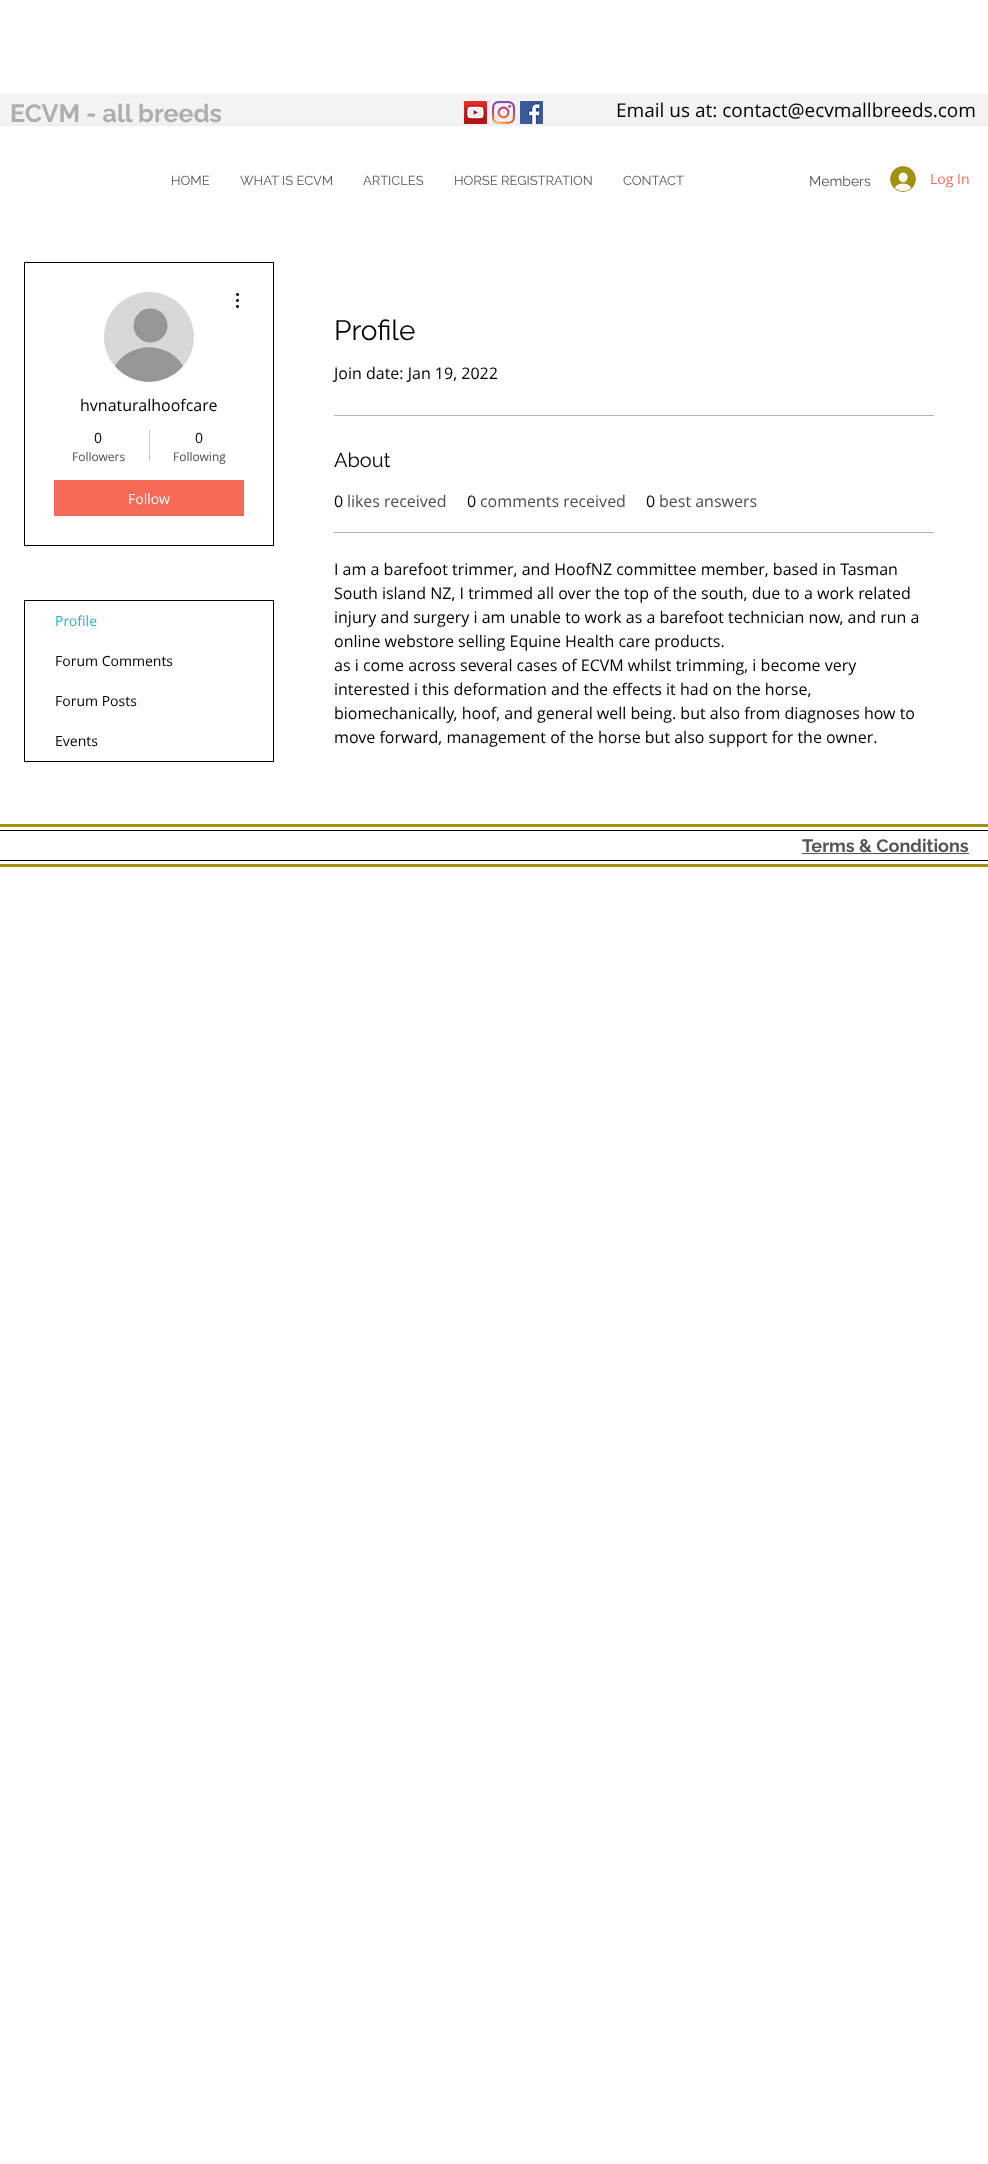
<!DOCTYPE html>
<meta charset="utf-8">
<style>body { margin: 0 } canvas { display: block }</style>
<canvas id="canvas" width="988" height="2164"></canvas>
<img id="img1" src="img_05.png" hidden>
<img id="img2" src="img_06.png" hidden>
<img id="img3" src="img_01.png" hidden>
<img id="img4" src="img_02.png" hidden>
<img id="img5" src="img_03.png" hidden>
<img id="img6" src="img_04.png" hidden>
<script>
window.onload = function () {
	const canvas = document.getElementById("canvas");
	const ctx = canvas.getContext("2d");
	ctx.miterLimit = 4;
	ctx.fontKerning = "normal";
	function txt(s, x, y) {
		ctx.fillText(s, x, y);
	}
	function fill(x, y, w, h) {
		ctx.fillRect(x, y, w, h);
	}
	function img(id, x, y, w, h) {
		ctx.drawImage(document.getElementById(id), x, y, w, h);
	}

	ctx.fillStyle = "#FFFFFF";
	fill(0, 0, 988, 2164);
	ctx.fillStyle = "#EFEFEF";
	fill(0, 94, 988, 32);
	img("img1", 890, 166, 26, 26);
	ctx.strokeStyle = "#000000";
	ctx.strokeRect(24.5, 262.5, 249, 283);
	ctx.fillStyle = "#D8D8D8";
	ctx.beginPath();
	ctx.arc(149, 337, 45, 0, Math.PI * 2);
	ctx.fill();
	ctx.fillStyle = "#969696";
	ctx.beginPath();
	ctx.arc(150.5, 325.5, 17, 0, Math.PI * 2);
	ctx.fill();
	ctx.beginPath();
	ctx.moveTo(183, 366);
	ctx.bezierCurveTo(165, 387, 133, 387, 115, 366);
	ctx.bezierCurveTo(130, 341, 168, 341, 183, 366);
	ctx.closePath();
	ctx.fill();
	img("img2", 236, 293, 3, 15);
	ctx.fillStyle = "#CCCCCC";
	fill(149, 430, 1, 32);
	ctx.fillStyle = "#F56A56";
	fill(54, 480, 190, 36);
	ctx.strokeRect(24.5, 600.5, 249, 161);
	ctx.fillStyle = "#B3B3B3";
	fill(334, 415, 600, 1);
	fill(334, 532, 600, 1);
	ctx.fillStyle = "#A1920E";
	fill(0, 824, 988, 3);
	fill(0, 864, 988, 3);
	ctx.fillStyle = "#000000";
	fill(0, 830, 988, 1);
	fill(0, 860, 988, 1);
	ctx.fillStyle = "#555555";
	fill(802, 853, 167, 1);
	ctx.font = "bold 25px Raleway";
	ctx.fillStyle = "#959595";
	txt("ECVM - all breeds", 10, 122);
	img("img3", 0, 94, 988, 29);
	img("img4", 464, 101, 23, 23);
	img("img5", 492, 101, 23, 23);
	img("img6", 520, 101, 23, 23);
	ctx.font = "19px Open Sans";
	ctx.fillStyle = "#000000";
	txt("Email us at: contact@ecvmallbreeds.com", 616, 117);
	ctx.font = "13px Raleway";
	ctx.fillStyle = "#555555";
	txt("HOME", 171, 185);
	txt("WHAT IS ECVM", 240, 185);
	txt("ARTICLES", 363, 185);
	txt("HORSE REGISTRATION", 454, 185);
	txt("CONTACT", 623, 185);
	ctx.font = "14px Raleway";
	txt("Members", 809, 186);
	ctx.font = "14px Open Sans";
	ctx.fillStyle = "#F56A56";
	txt("Log In", 930, 184);
	ctx.font = "16px Open Sans";
	ctx.fillStyle = "#000000";
	txt("hvnaturalhoofcare", 80, 411);
	ctx.font = "14px Open Sans";
	txt("0", 94, 443);
	ctx.font = "12px Open Sans";
	ctx.fillStyle = "#4D4D4D";
	txt("Followers", 72, 461);
	ctx.font = "14px Open Sans";
	ctx.fillStyle = "#000000";
	txt("0", 195, 443);
	ctx.font = "12px Open Sans";
	ctx.fillStyle = "#4D4D4D";
	txt("Following", 173, 461);
	ctx.font = "14px Open Sans";
	ctx.fillStyle = "#FFFFFF";
	txt("Follow", 128, 504);
	ctx.fillStyle = "#28ADD1";
	txt("Profile", 55, 626);
	ctx.fillStyle = "#000000";
	txt("Forum Comments", 55, 666);
	txt("Forum Posts", 55, 706);
	txt("Events", 55, 746);
	ctx.font = "28px Raleway";
	txt("Profile", 334, 340);
	ctx.font = "16px Open Sans";
	txt("Join date: Jan 19, 2022", 334, 379);
	ctx.font = "20px Raleway";
	txt("About", 334, 467);
	ctx.font = "16px Open Sans";
	txt("0", 334, 507);
	ctx.fillStyle = "#4D4D4D";
	txt("likes received", 347, 507);
	ctx.fillStyle = "#000000";
	txt("0", 467, 507);
	ctx.fillStyle = "#4D4D4D";
	txt("comments received", 480, 507);
	ctx.fillStyle = "#000000";
	txt("0", 646, 507);
	ctx.fillStyle = "#4D4D4D";
	txt("best answers", 659, 507);
	ctx.fillStyle = "#000000";
	txt("I am a barefoot trimmer, and HoofNZ committee member, based in Tasman", 334, 575);
	txt("South island NZ, I trimmed all over the top of the south, due to a work related", 334, 599);
	txt("injury and surgery i am unable to work as a barefoot technician now, and run a", 334, 623);
	txt("online webstore selling Equine Health care products.", 334, 647);
	txt("as i come across several cases of ECVM whilst trimming, i become very", 334, 671);
	txt("interested i this deformation and the effects it had on the horse,", 334, 695);
	txt("biomechanically, hoof, and general well being. but also from diagnoses how to", 334, 719);
	txt("move forward, management of the horse but also support for the owner.", 334, 743);
	ctx.font = "bold 18px Raleway";
	ctx.fillStyle = "#555555";
	txt("Terms & Conditions", 802, 852);
};
</script>
